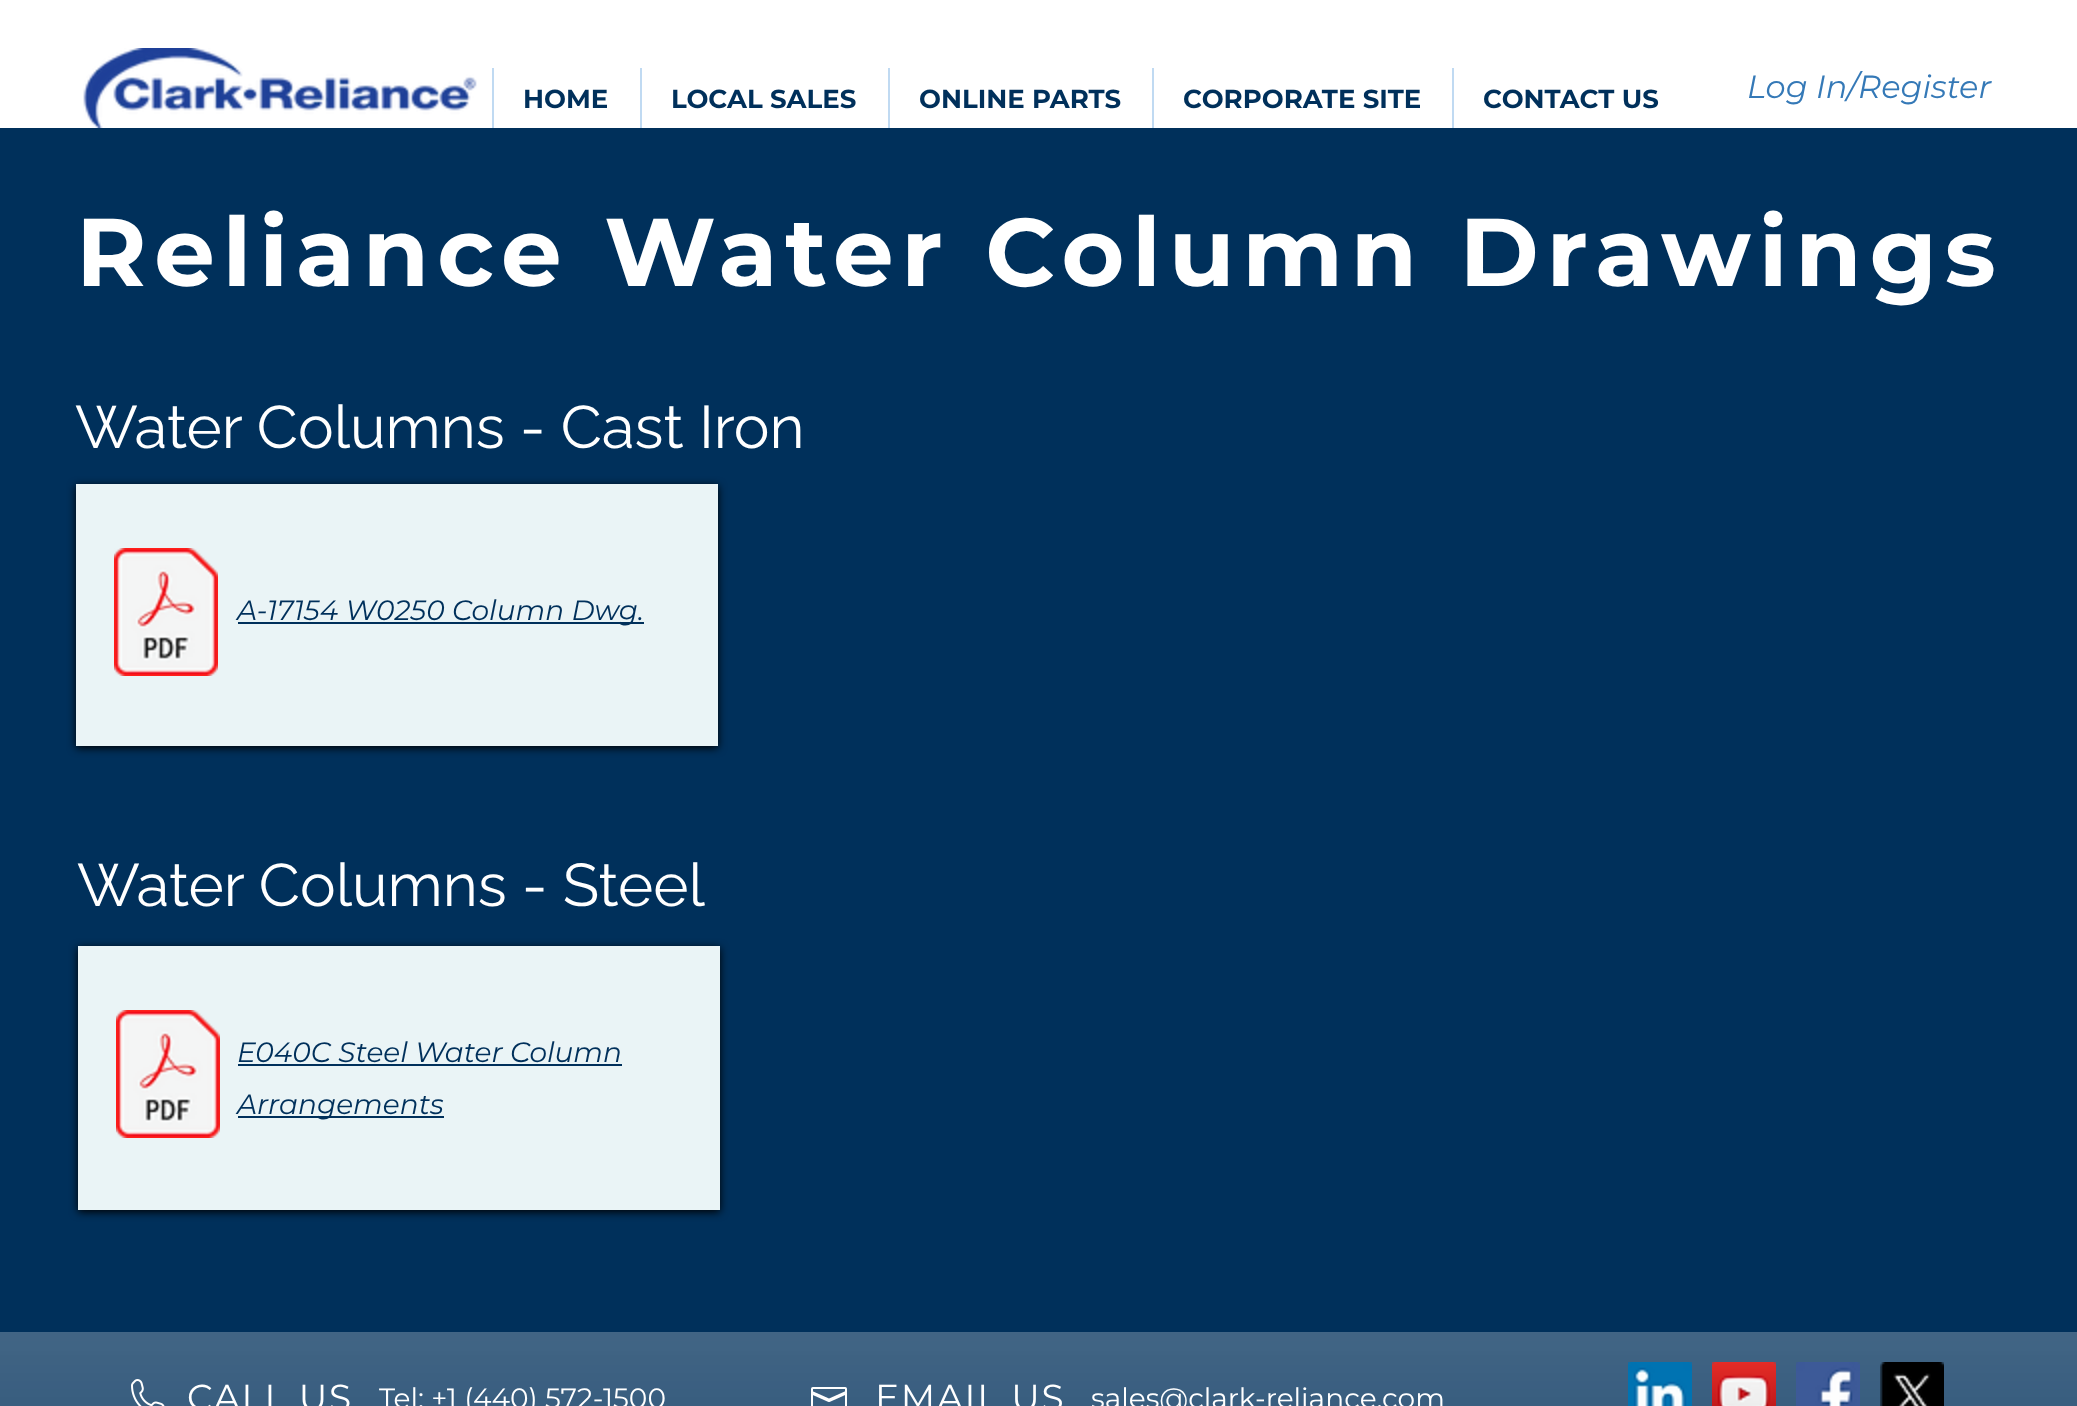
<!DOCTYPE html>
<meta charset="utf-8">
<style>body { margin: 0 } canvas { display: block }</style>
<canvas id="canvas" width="2077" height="1406"></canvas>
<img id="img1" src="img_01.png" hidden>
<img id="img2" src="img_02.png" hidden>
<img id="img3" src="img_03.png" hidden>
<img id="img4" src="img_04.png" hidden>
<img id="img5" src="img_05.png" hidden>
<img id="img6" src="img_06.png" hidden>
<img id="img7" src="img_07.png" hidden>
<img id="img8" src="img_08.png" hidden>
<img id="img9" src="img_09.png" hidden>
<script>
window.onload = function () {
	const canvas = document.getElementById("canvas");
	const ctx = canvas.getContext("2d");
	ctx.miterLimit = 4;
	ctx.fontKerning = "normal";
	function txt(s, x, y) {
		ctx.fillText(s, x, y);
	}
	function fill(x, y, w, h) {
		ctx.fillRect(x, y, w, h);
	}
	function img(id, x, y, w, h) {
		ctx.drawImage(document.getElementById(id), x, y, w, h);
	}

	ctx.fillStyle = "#00305B";
	fill(0, 0, 2077, 1406);
	ctx.fillStyle = "#FFFFFF";
	fill(0, 0, 2077, 128);
	img("img1", 83, 48, 394, 80);
	ctx.fillStyle = "#C0DAF2";
	fill(492, 68, 2, 60);
	fill(640, 68, 2, 60);
	fill(888, 68, 2, 60);
	fill(1152, 68, 2, 60);
	fill(1452, 68, 2, 60);
	ctx.fillStyle = "#000000";
	ctx.filter = "blur(4px)";
	ctx.beginPath();
	ctx.rect(76, 486, 642, 262);
	ctx.fill();
	ctx.filter = "none";
	ctx.fillStyle = "#EAF4F6";
	fill(76, 484, 642, 262);
	img("img2", 114, 548, 104, 128);
	ctx.fillStyle = "#00305B";
	fill(238, 622, 406, 2);
	ctx.fillStyle = "#000000";
	ctx.filter = "blur(4px)";
	ctx.beginPath();
	ctx.rect(78, 948, 642, 264);
	ctx.fill();
	ctx.filter = "none";
	ctx.fillStyle = "#EAF4F6";
	fill(78, 946, 642, 264);
	img("img2", 116, 1010, 104, 128);
	ctx.fillStyle = "#00305B";
	fill(238, 1064, 384, 2);
	fill(238, 1116, 206, 2);
	img("img3", 0, 1332, 2077, 74);
	img("img4", 131, 1379, 34, 27);
	img("img5", 811, 1387, 36, 19);
	img("img6", 1628, 1362, 64, 44);
	img("img7", 1712, 1362, 64, 44);
	img("img8", 1796, 1362, 64, 44);
	img("img9", 1880, 1362, 64, 44);
	ctx.font = "bold 26px Montserrat";
	txt("HOME", 523, 108);
	txt("LOCAL SALES", 671, 108);
	txt("ONLINE PARTS", 919, 108);
	txt("CORPORATE SITE", 1183, 108);
	txt("CONTACT US", 1483, 108);
	ctx.font = "italic 32px Montserrat";
	ctx.fillStyle = "#3579B7";
	txt("Log In/Register", 1747, 98);
	ctx.letterSpacing = "7.7px";
	ctx.font = "bold 96px Montserrat";
	ctx.fillStyle = "#FFFFFF";
	txt("Reliance Water Column Drawings", 76, 286);
	ctx.letterSpacing = "0px";
	ctx.font = "60px Raleway";
	txt("Water Columns - Cast Iron", 75, 448);
	ctx.font = "italic 28px Montserrat";
	ctx.fillStyle = "#00305B";
	txt("A-17154 W0250 Column Dwg.", 237, 620);
	ctx.font = "60px Raleway";
	ctx.fillStyle = "#FFFFFF";
	txt("Water Columns - Steel", 77, 906);
	ctx.font = "italic 28px Montserrat";
	ctx.fillStyle = "#00305B";
	txt("E040C Steel Water Column", 237, 1062);
	txt("Arrangements", 237, 1114);
	ctx.letterSpacing = "1.75px";
	ctx.font = "36px Montserrat";
	ctx.fillStyle = "#FFFFFF";
	txt("CALL US", 187, 1410);
	ctx.letterSpacing = "0px";
	ctx.font = "28px Montserrat";
	txt("Tel: +1 (440) 572-1500", 379, 1408);
	ctx.letterSpacing = "1.75px";
	ctx.font = "36px Montserrat";
	txt("EMAIL US", 875, 1410);
	ctx.letterSpacing = "0px";
	ctx.font = "28px Montserrat";
	txt("sales@clark-reliance.com", 1091, 1408);
};
</script>
